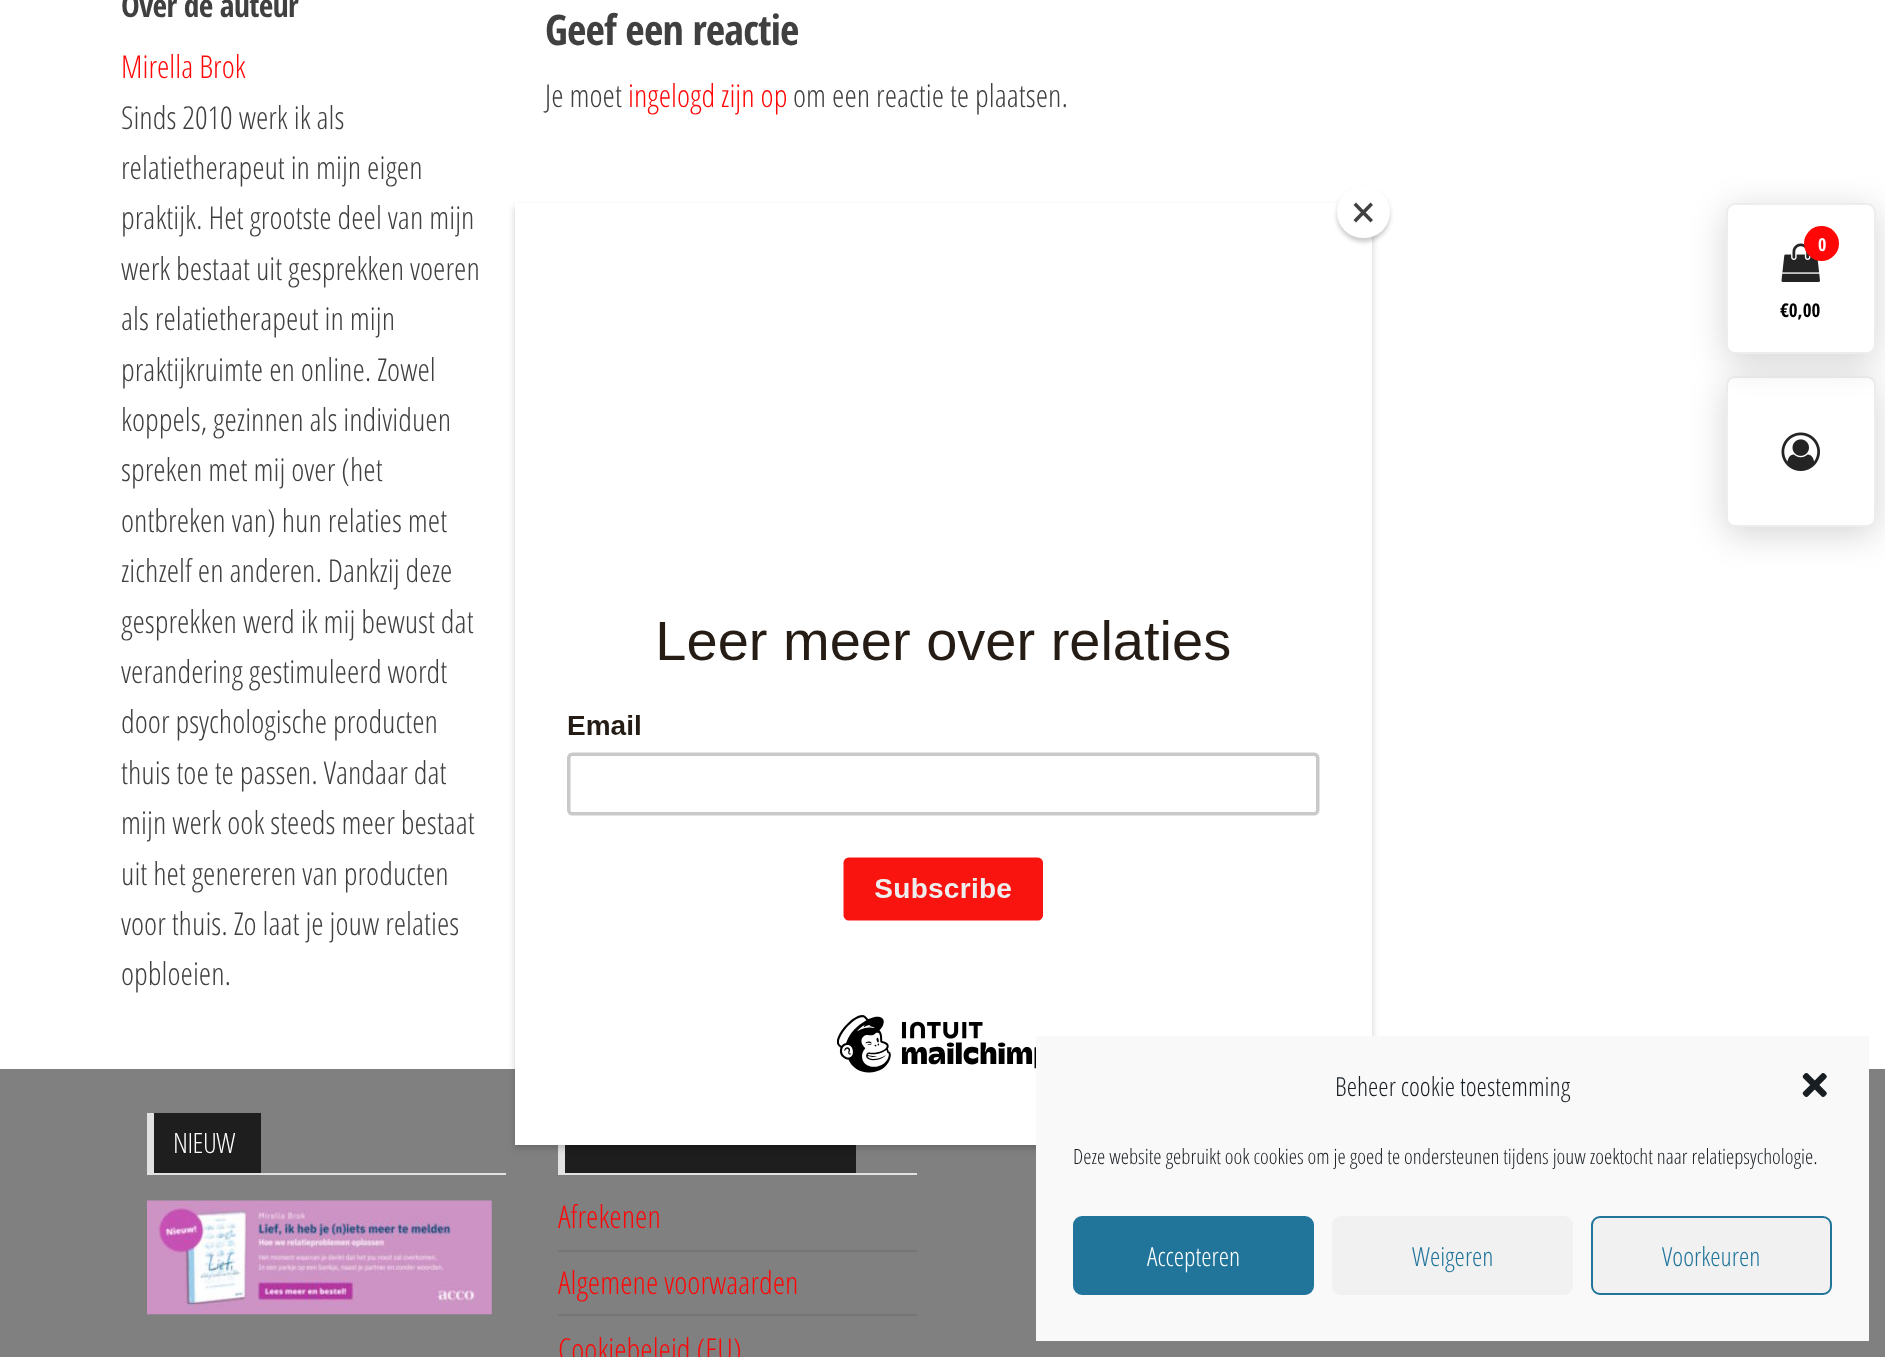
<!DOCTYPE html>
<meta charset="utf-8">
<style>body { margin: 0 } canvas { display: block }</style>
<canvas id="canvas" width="1885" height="1357"></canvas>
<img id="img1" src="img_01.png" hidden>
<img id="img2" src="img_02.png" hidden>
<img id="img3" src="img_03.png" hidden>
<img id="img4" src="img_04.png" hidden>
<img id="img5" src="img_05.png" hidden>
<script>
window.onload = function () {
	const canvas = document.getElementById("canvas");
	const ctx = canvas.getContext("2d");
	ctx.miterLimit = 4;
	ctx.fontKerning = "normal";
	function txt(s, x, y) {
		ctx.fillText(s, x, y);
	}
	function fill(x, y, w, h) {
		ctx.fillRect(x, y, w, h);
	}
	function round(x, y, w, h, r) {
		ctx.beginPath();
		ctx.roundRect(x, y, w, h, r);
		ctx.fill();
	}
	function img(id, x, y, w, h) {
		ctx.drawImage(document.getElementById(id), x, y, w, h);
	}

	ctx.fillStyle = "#FFFFFF";
	fill(0, 0, 1885, 1357);
	ctx.fillStyle = "rgba(0, 0, 0, 0.17)";
	ctx.filter = "blur(17.5px)";
	ctx.beginPath();
	ctx.roundRect(1726, 383, 150, 151, 9);
	ctx.fill();
	ctx.filter = "none";
	ctx.fillStyle = "#FFFFFF";
	ctx.beginPath();
	ctx.roundRect(1727, 377, 148, 149, 8);
	ctx.fill();
	ctx.strokeStyle = "#EDEDED";
	ctx.lineWidth = 2;
	ctx.stroke();
	ctx.fillStyle = "rgba(0, 0, 0, 0.17)";
	ctx.filter = "blur(17.5px)";
	ctx.beginPath();
	ctx.roundRect(1726, 210, 150, 151, 9);
	ctx.fill();
	ctx.filter = "none";
	ctx.fillStyle = "#FFFFFF";
	ctx.beginPath();
	ctx.roundRect(1727, 204, 148, 149, 8);
	ctx.fill();
	ctx.stroke();
	img("img1", 1781, 243, 39, 39);
	ctx.fillStyle = "#FF0707";
	ctx.beginPath();
	ctx.arc(1821.5, 243.5, 17.5, 0, Math.PI * 2);
	ctx.fill();
	img("img2", 1781, 432, 39, 39);
	ctx.fillStyle = "#808080";
	fill(0, 1069, 1885, 288);
	ctx.fillStyle = "#E2E2E2";
	fill(147, 1173, 359, 2);
	ctx.fillStyle = "#1E1E1E";
	fill(154, 1113, 107, 60);
	ctx.fillStyle = "#E2E2E2";
	fill(147, 1113, 7, 60);
	img("img3", 147, 1200, 345, 115);
	fill(558, 1173, 359, 2);
	ctx.fillStyle = "#1E1E1E";
	fill(565, 1145, 291, 28);
	ctx.fillStyle = "#E2E2E2";
	fill(558, 1145, 7, 28);
	ctx.fillStyle = "#767676";
	fill(558, 1250, 359, 2);
	fill(558, 1314, 359, 2);
	ctx.fillStyle = "rgba(0, 0, 0, 0.2)";
	ctx.filter = "blur(2px)";
	ctx.beginPath();
	ctx.roundRect(1337, 189, 53, 53, 26.5);
	ctx.fill();
	ctx.filter = "none";
	ctx.save();
	ctx.beginPath();
	ctx.moveTo(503, 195);
	ctx.lineTo(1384, 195);
	ctx.lineTo(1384, 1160);
	ctx.lineTo(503, 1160);
	ctx.closePath();
	ctx.moveTo(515, 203);
	ctx.lineTo(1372, 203);
	ctx.lineTo(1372, 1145);
	ctx.lineTo(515, 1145);
	ctx.closePath();
	ctx.clip("evenodd");
	ctx.filter = "blur(3.5px)";
	ctx.beginPath();
	ctx.rect(515, 207, 857, 941);
	ctx.fill();
	ctx.filter = "none";
	ctx.restore();
	ctx.fillStyle = "#FFFFFF";
	round(1337, 186, 53, 52, 26);
	ctx.fillStyle = "#414141";
	ctx.beginPath();
	ctx.moveTo(1370.5, 202.5);
	ctx.lineTo(1373, 205);
	ctx.lineTo(1356, 222.5);
	ctx.lineTo(1353.5, 220);
	ctx.closePath();
	ctx.fill();
	ctx.beginPath();
	ctx.moveTo(1353.5, 205);
	ctx.lineTo(1356, 202.5);
	ctx.lineTo(1373, 220);
	ctx.lineTo(1370.5, 222.5);
	ctx.closePath();
	ctx.fill();
	img("img4", 515, 620, 857, 525);
	ctx.fillStyle = "#F9F9F9";
	fill(1036, 1036, 833, 305);
	img("img5", 1802, 1073, 25, 24);
	ctx.fillStyle = "#21759B";
	ctx.beginPath();
	ctx.roundRect(1074, 1217, 239, 77, 8);
	ctx.fill();
	ctx.strokeStyle = "#21759B";
	ctx.stroke();
	ctx.fillStyle = "#F1F1F1";
	round(1332, 1216, 241, 79, 9);
	ctx.beginPath();
	ctx.roundRect(1592, 1217, 239, 77, 8);
	ctx.fill();
	ctx.stroke();
	ctx.letterSpacing = "-0.6px";
	ctx.font = "bold 31.5px Open Sans Condensed";
	ctx.fillStyle = "#404040";
	txt("Over de auteur", 121, 17);
	ctx.letterSpacing = "0px";
	ctx.font = "300 31.5px Open Sans Condensed";
	ctx.fillStyle = "#FF0707";
	txt("Mirella Brok", 121, 78);
	ctx.fillStyle = "#404040";
	txt("Sinds 2010 werk ik als", 121, 129);
	txt("relatietherapeut in mijn eigen", 121, 179);
	txt("praktijk. Het grootste deel van mijn", 121, 229);
	txt("werk bestaat uit gesprekken voeren", 121, 280);
	txt("als relatietherapeut in mijn", 121, 330);
	txt("praktijkruimte en online. Zowel", 121, 381);
	txt("koppels, gezinnen als individuen", 121, 431);
	txt("spreken met mij over (het", 121, 481);
	txt("ontbreken van) hun relaties met", 121, 532);
	txt("zichzelf en anderen. Dankzij deze", 121, 582);
	txt("gesprekken werd ik mij bewust dat", 121, 633);
	txt("verandering gestimuleerd wordt", 121, 683);
	txt("door psychologische producten", 121, 733);
	txt("thuis toe te passen. Vandaar dat", 121, 784);
	txt("mijn werk ook steeds meer bestaat", 121, 834);
	txt("uit het genereren van producten", 121, 885);
	txt("voor thuis. Zo laat je jouw relaties", 121, 935);
	txt("opbloeien.", 121, 985);
	ctx.letterSpacing = "-0.8px";
	ctx.font = "bold 42px Open Sans Condensed";
	txt("Geef een reactie", 545, 45);
	ctx.letterSpacing = "0px";
	ctx.font = "300 31.5px Open Sans Condensed";
	txt("Je moet", 545, 107);
	ctx.fillStyle = "#FF0707";
	txt("ingelogd zijn op", 628, 107);
	ctx.fillStyle = "#404040";
	txt("om een reactie te plaatsen.", 793, 107);
	ctx.font = "bold 18px Open Sans Condensed";
	ctx.fillStyle = "#FFFFFF";
	txt("0", 1818, 251);
	ctx.font = "bold 19px Open Sans Condensed";
	ctx.fillStyle = "#000000";
	txt("€0,00", 1780, 317);
	ctx.letterSpacing = "-0.5px";
	ctx.font = "300 28px Open Sans Condensed";
	ctx.fillStyle = "#FFFFFF";
	txt("NIEUW", 173, 1153);
	ctx.letterSpacing = "0px";
	ctx.font = "300 31.5px Open Sans Condensed";
	ctx.fillStyle = "#FF0707";
	txt("Afrekenen", 558, 1228);
	txt("Algemene voorwaarden", 558, 1294);
	txt("Cookiebeleid (EU)", 558, 1361);
	ctx.font = "300 26.25px Open Sans Condensed";
	ctx.fillStyle = "#191E23";
	txt("Beheer cookie toestemming", 1335, 1096);
	ctx.font = "300 21px Open Sans Condensed";
	txt("Deze website gebruikt ook cookies om je goed te ondersteunen tijdens jouw zoektocht naar relatiepsychologie.", 1073, 1164);
	ctx.font = "300 26.25px Open Sans Condensed";
	ctx.fillStyle = "#FFFFFF";
	txt("Accepteren", 1147, 1266);
	ctx.fillStyle = "#21759B";
	txt("Weigeren", 1412, 1266);
	txt("Voorkeuren", 1662, 1266);
};
</script>
